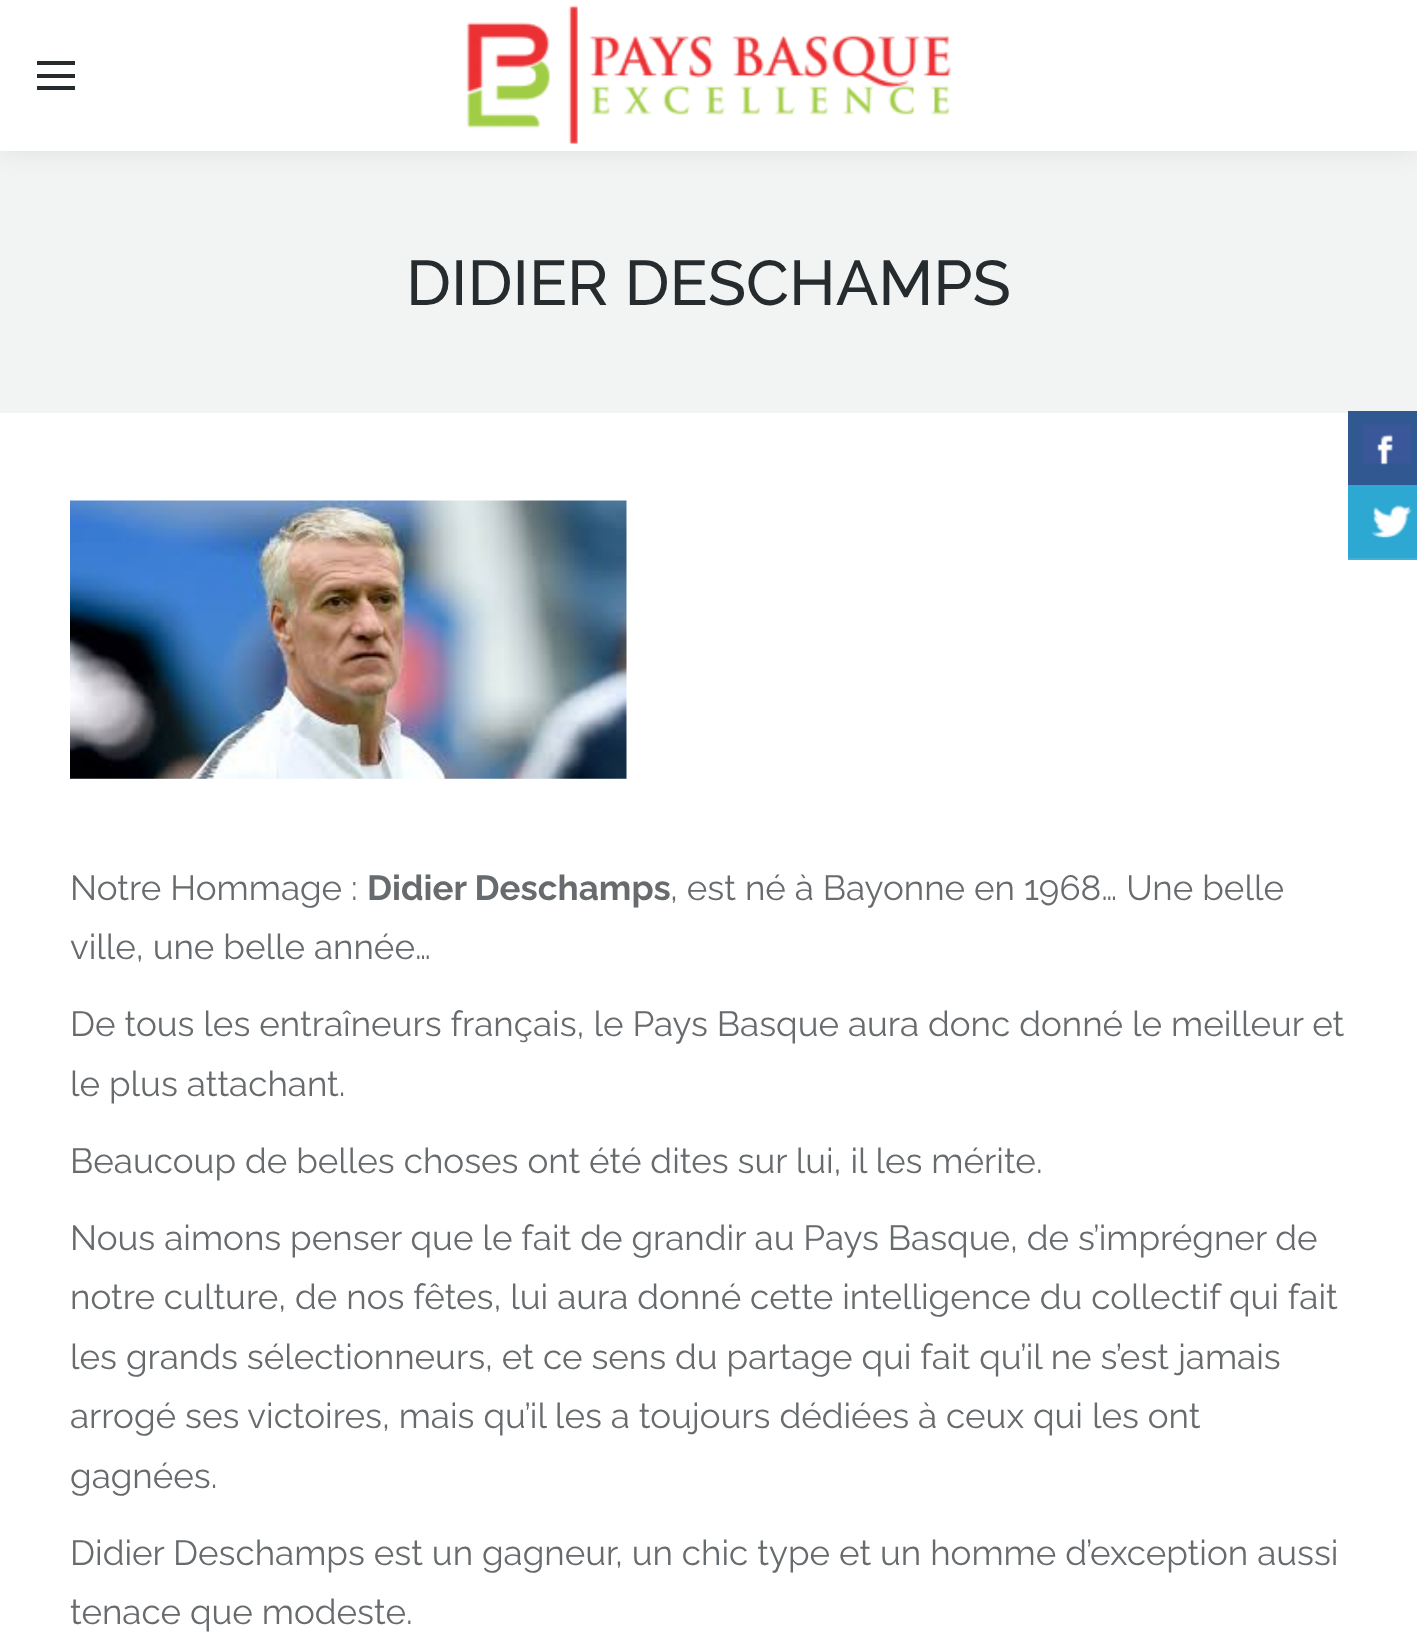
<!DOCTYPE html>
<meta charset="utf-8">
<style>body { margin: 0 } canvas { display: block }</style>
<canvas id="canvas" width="1417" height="1646"></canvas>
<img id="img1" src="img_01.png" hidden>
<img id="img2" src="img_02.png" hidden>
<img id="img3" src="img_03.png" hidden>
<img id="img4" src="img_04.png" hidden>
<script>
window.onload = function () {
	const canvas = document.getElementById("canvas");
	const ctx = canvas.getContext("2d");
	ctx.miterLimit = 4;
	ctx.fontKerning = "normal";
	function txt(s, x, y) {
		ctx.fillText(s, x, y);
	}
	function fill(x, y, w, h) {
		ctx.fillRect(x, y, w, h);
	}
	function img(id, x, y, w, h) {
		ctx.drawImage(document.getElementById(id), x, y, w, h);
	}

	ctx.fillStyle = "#FFFFFF";
	fill(0, 0, 1417, 1646);
	ctx.fillStyle = "#F2F3F3";
	fill(0, 151, 1417, 262);
	ctx.fillStyle = "rgba(0, 0, 0, 0.07)";
	ctx.filter = "blur(13px)";
	ctx.beginPath();
	ctx.rect(-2, -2, 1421, 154);
	ctx.fill();
	ctx.filter = "none";
	ctx.fillStyle = "#FFFFFF";
	fill(0, 0, 1417, 151);
	ctx.fillStyle = "#262B2E";
	fill(37, 61, 38, 4);
	fill(37, 74, 38, 4);
	fill(37, 86, 38, 4);
	img("img1", 466, 5, 485, 139);
	img("img2", 70, 500, 557, 279);
	ctx.fillStyle = "#305891";
	fill(1348, 411, 69, 74);
	img("img3", 1362, 424, 49, 41);
	ctx.fillStyle = "#2CA8D2";
	fill(1348, 485, 69, 73);
	ctx.fillStyle = "#41B1D7";
	fill(1348, 558, 69, 2);
	img("img4", 1371, 505, 41, 33);
	ctx.font = "500 63px Raleway";
	ctx.fillStyle = "#262B2E";
	txt("DIDIER DESCHAMPS", 406, 305);
	ctx.font = "35px Raleway";
	ctx.fillStyle = "#676B6D";
	txt("Notre Hommage :", 70, 900);
	ctx.font = "bold 35px Raleway";
	txt("Didier Deschamps", 367, 900);
	ctx.font = "35px Raleway";
	txt(", est né à Bayonne en 1968… Une belle", 670, 900);
	txt("ville, une belle année…", 70, 959);
	txt("De tous les entraîneurs français, le Pays Basque aura donc donné le meilleur et", 70, 1036);
	txt("le plus attachant.", 70, 1096);
	txt("Beaucoup de belles choses ont été dites sur lui, il les mérite.", 70, 1173);
	txt("Nous aimons penser que le fait de grandir au Pays Basque, de s’imprégner de", 70, 1250);
	txt("notre culture, de nos fêtes, lui aura donné cette intelligence du collectif qui fait", 70, 1309);
	txt("les grands sélectionneurs, et ce sens du partage qui fait qu’il ne s’est jamais", 70, 1369);
	txt("arrogé ses victoires, mais qu’il les a toujours dédiées à ceux qui les ont", 70, 1428);
	txt("gagnées.", 70, 1488);
	txt("Didier Deschamps est un gagneur, un chic type et un homme d’exception aussi", 70, 1565);
	txt("tenace que modeste.", 70, 1624);
};
</script>
